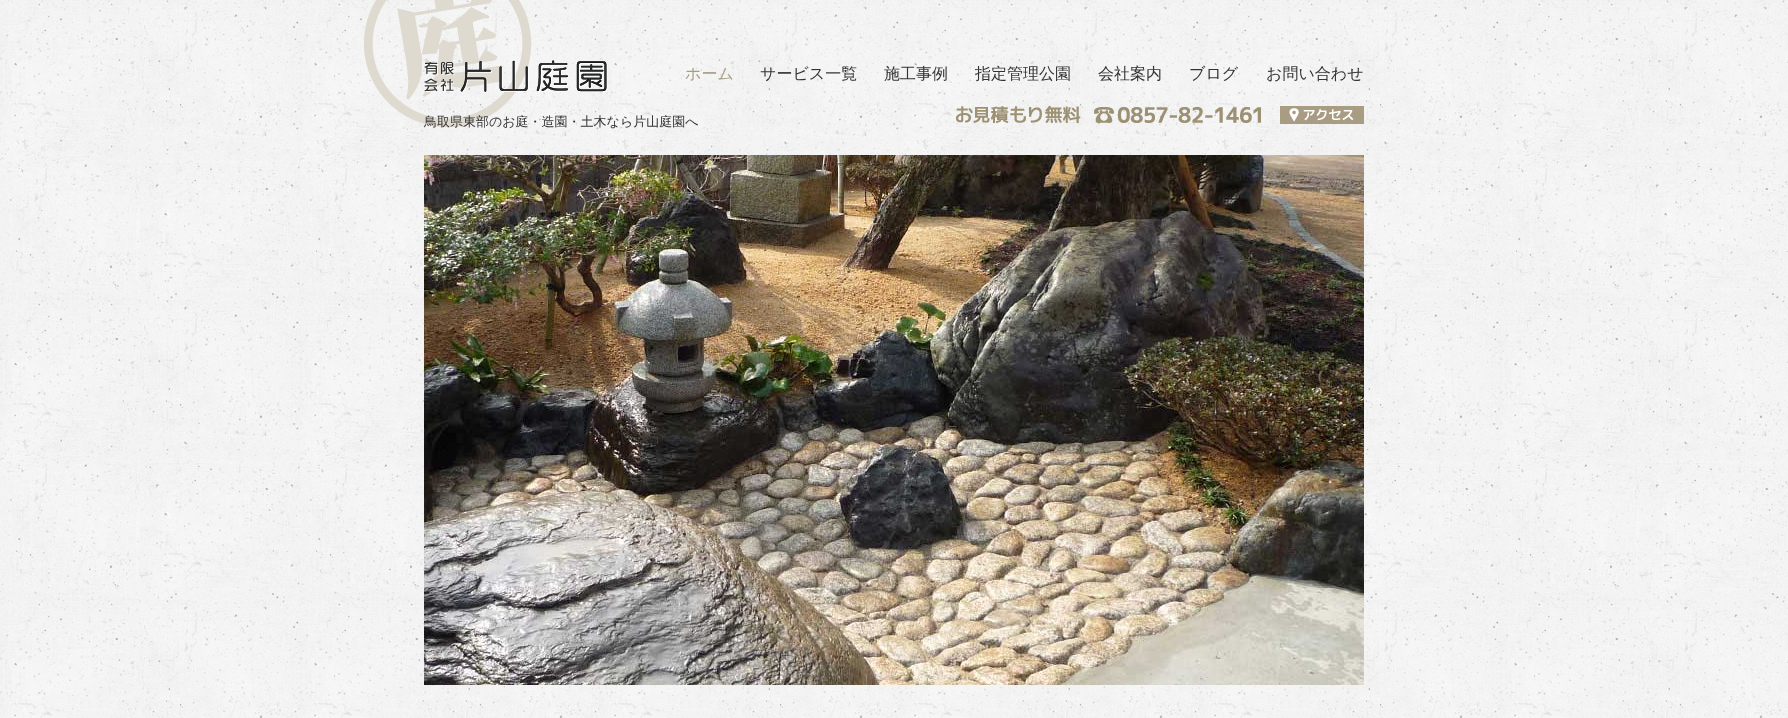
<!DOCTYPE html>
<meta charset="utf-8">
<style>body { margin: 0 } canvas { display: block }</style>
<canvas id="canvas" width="1788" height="718"></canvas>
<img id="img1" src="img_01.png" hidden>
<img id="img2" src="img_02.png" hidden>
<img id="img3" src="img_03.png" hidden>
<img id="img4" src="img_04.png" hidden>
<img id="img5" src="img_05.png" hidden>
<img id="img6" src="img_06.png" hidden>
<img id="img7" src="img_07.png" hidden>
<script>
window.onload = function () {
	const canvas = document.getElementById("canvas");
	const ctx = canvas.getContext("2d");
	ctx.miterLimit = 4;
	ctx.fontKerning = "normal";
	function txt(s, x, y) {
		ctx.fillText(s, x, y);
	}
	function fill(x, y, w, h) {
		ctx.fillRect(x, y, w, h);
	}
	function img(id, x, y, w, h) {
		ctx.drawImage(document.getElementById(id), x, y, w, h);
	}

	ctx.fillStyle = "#FFFFFF";
	fill(0, 0, 1788, 718);
	img("img1", 0, 0, 1788, 718);
	img("img2", 364, 0, 168, 128);
	img("img3", 424, 60, 184, 33);
	img("img4", 956, 106, 125, 17);
	img("img5", 1094, 107, 167, 17);
	img("img6", 1280, 106, 84, 18);
	img("img7", 424, 155, 940, 530);
	ctx.font = "500 16px WenQuanYi Zen Hei";
	ctx.fillStyle = "#A89D83";
	txt("ホーム", 685, 79);
	ctx.fillStyle = "#333333";
	txt("サービス一覧", 760, 79);
	txt("施工事例", 884, 79);
	txt("指定管理公園", 975, 79);
	txt("会社案内", 1098, 79);
	txt("ブログ", 1189, 79);
	txt("お問い合わせ", 1266, 79);
	ctx.font = "500 13px WenQuanYi Zen Hei";
	txt("鳥取県東部のお庭・造園・土木なら片山庭園へ", 424, 126);
};
</script>
